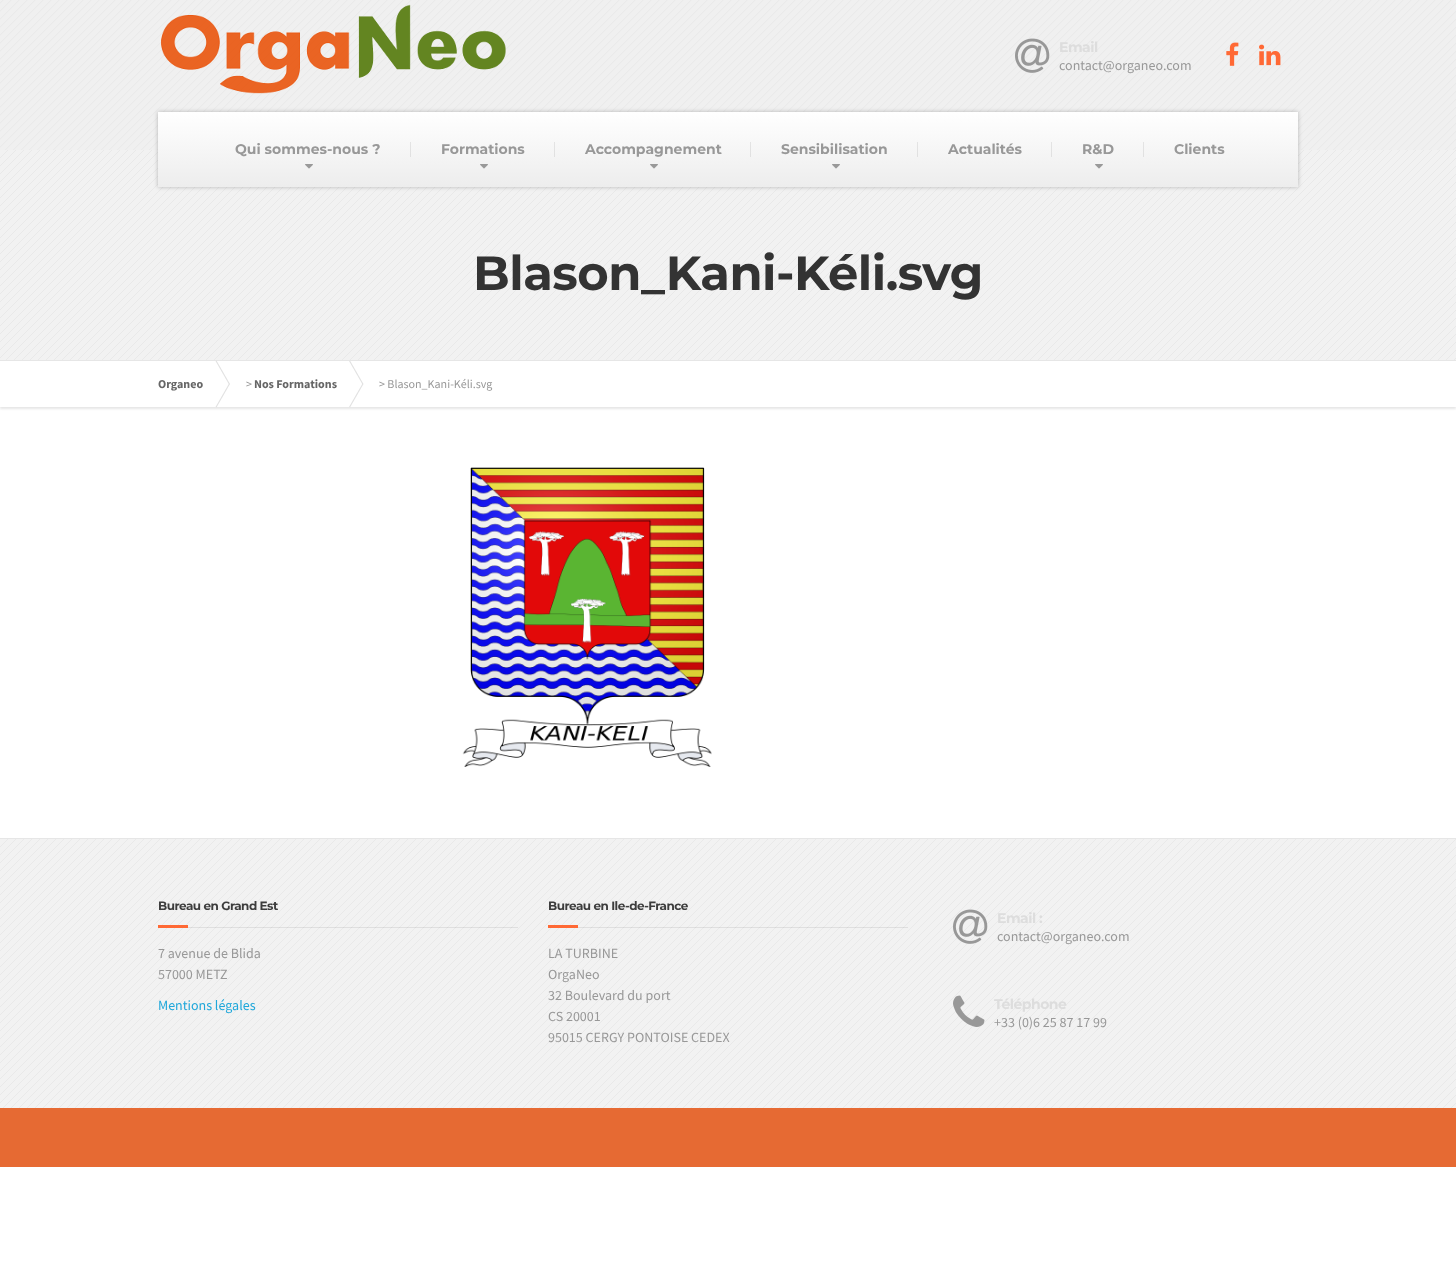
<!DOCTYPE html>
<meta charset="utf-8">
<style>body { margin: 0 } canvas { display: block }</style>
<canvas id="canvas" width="1456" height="1262"></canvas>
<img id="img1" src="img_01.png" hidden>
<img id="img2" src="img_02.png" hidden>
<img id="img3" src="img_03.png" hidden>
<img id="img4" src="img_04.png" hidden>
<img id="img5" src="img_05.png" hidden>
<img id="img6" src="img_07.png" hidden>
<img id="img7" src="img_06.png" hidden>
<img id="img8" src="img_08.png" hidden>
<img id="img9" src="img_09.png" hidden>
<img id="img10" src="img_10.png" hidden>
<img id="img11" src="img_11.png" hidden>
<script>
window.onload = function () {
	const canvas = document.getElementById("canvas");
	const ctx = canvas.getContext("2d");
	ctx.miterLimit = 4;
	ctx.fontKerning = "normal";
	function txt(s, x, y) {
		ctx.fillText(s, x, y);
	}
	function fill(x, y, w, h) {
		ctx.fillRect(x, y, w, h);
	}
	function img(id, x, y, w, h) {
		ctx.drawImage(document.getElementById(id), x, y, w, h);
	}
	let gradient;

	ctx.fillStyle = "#FFFFFF";
	fill(0, 0, 1456, 1262);
	ctx.fillStyle = "#F0F0F0";
	fill(0, 0, 1456, 150);
	img("img1", 0, 0, 1456, 150);
	img("img2", 161, 4, 345, 90);
	img("img3", 1015, 38, 35, 35);
	img("img4", 1226, 42, 13, 24);
	img("img5", 1259, 44, 22, 22);
	ctx.fillStyle = "#F2F2F2";
	fill(0, 150, 1456, 210);
	img("img6", 0, 150, 1456, 210);
	ctx.fillStyle = "rgba(0, 0, 0, 0.25)";
	ctx.filter = "blur(2px)";
	ctx.beginPath();
	ctx.rect(158, 112, 1140, 75);
	ctx.fill();
	ctx.filter = "none";
	gradient = ctx.createLinearGradient(728, 112, 728, 187);
	gradient.addColorStop(0, "#FFFFFF");
	gradient.addColorStop(1, "#EDEDED");
	ctx.fillStyle = gradient;
	fill(158, 112, 1140, 75);
	ctx.fillStyle = "rgba(0, 0, 0, 0.08)";
	fill(410, 142, 1, 15);
	img("img7", 305, 164, 8, 5);
	fill(554, 142, 1, 15);
	img("img7", 480, 164, 8, 5);
	fill(750, 142, 1, 15);
	img("img7", 650, 164, 8, 5);
	fill(917, 142, 1, 15);
	img("img7", 832, 164, 8, 5);
	fill(1051, 142, 1, 15);
	fill(1143, 142, 1, 15);
	img("img7", 1095, 164, 8, 5);
	ctx.fillStyle = "#E6E6E6";
	fill(0, 360, 1456, 1);
	ctx.save();
	ctx.beginPath();
	ctx.rect(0, 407, 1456, 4);
	ctx.clip();
	ctx.filter = "blur(1px)";
	ctx.beginPath();
	ctx.rect(0, 363, 1456, 46);
	ctx.fill();
	ctx.filter = "none";
	ctx.restore();
	ctx.fillStyle = "#E2E2E2";
	ctx.beginPath();
	ctx.moveTo(215.5, 361);
	ctx.lineTo(216.5, 360.5);
	ctx.lineTo(230, 384);
	ctx.lineTo(229, 384.5);
	ctx.closePath();
	ctx.fill();
	ctx.beginPath();
	ctx.moveTo(229, 383.5);
	ctx.lineTo(230, 384);
	ctx.lineTo(216.5, 407.5);
	ctx.lineTo(215.5, 407);
	ctx.closePath();
	ctx.fill();
	ctx.beginPath();
	ctx.moveTo(349, 361);
	ctx.lineTo(350, 360.5);
	ctx.lineTo(363.5, 384);
	ctx.lineTo(362.5, 384.5);
	ctx.closePath();
	ctx.fill();
	ctx.beginPath();
	ctx.moveTo(362.5, 383.5);
	ctx.lineTo(363.5, 384);
	ctx.lineTo(350, 407.5);
	ctx.lineTo(349, 407);
	ctx.closePath();
	ctx.fill();
	img("img8", 462, 467, 250, 300);
	ctx.fillStyle = "#F2F2F2";
	fill(0, 839, 1456, 269);
	img("img9", 0, 839, 1456, 269);
	ctx.fillStyle = "#E6E6E6";
	fill(0, 838, 1456, 1);
	ctx.fillStyle = "rgba(0, 0, 0, 0.08)";
	fill(188, 927, 330, 1);
	ctx.fillStyle = "#FF6935";
	fill(158, 925, 30, 3);
	ctx.fillStyle = "rgba(0, 0, 0, 0.08)";
	fill(578, 927, 330, 1);
	ctx.fillStyle = "#FF6935";
	fill(548, 925, 30, 3);
	img("img10", 953, 909, 35, 35);
	img("img11", 953, 995, 32, 32);
	ctx.fillStyle = "#E66A33";
	fill(0, 1108, 1456, 59);
	ctx.letterSpacing = "-0.5px";
	ctx.font = "100 14px Montserrat";
	ctx.fillStyle = "#DDDDDD";
	txt("Email", 1059, 52);
	ctx.letterSpacing = "0px";
	ctx.font = "14px Source Sans Pro";
	ctx.fillStyle = "#989898";
	txt("contact@organeo.com", 1059, 70);
	ctx.font = "100 14px Montserrat";
	txt("Qui sommes-nous ?", 235, 154);
	txt("Formations", 441, 154);
	txt("Accompagnement", 585, 154);
	txt("Sensibilisation", 781, 154);
	txt("Actualités", 948, 154);
	txt("R&D", 1082, 154);
	txt("Clients", 1174, 154);
	ctx.letterSpacing = "-0.5px";
	ctx.font = "100 48px Montserrat";
	ctx.fillStyle = "#333333";
	txt("Blason_Kani-Kéli.svg", 473, 290);
	ctx.letterSpacing = "0px";
	ctx.font = "bold 12px Source Sans Pro";
	ctx.fillStyle = "#666666";
	txt("Organeo", 158, 388);
	ctx.font = "12px Source Sans Pro";
	ctx.fillStyle = "#989898";
	txt(">", 246, 388);
	ctx.font = "bold 12px Source Sans Pro";
	ctx.fillStyle = "#666666";
	txt("Nos Formations", 254, 388);
	ctx.font = "12px Source Sans Pro";
	ctx.fillStyle = "#989898";
	txt("> Blason_Kani-Kéli.svg", 379, 388);
	ctx.letterSpacing = "-0.5px";
	ctx.font = "100 12px Montserrat";
	ctx.fillStyle = "#3D3D3D";
	txt("Bureau en Grand Est", 158, 910);
	ctx.letterSpacing = "0px";
	ctx.font = "14px Source Sans Pro";
	ctx.fillStyle = "#989898";
	txt("7 avenue de Blida", 158, 958);
	txt("57000 METZ", 158, 979);
	ctx.fillStyle = "#1FA7DA";
	txt("Mentions légales", 158, 1010);
	ctx.letterSpacing = "-0.5px";
	ctx.font = "100 12px Montserrat";
	ctx.fillStyle = "#3D3D3D";
	txt("Bureau en Ile-de-France", 548, 910);
	ctx.letterSpacing = "0px";
	ctx.font = "14px Source Sans Pro";
	ctx.fillStyle = "#989898";
	txt("LA TURBINE", 548, 958);
	txt("OrgaNeo", 548, 979);
	txt("32 Boulevard du port", 548, 1000);
	txt("CS 20001", 548, 1021);
	txt("95015 CERGY PONTOISE CEDEX", 548, 1042);
	ctx.letterSpacing = "-0.5px";
	ctx.font = "100 14px Montserrat";
	ctx.fillStyle = "#DDDDDD";
	txt("Email :", 997, 923);
	ctx.letterSpacing = "0px";
	ctx.font = "14px Source Sans Pro";
	ctx.fillStyle = "#989898";
	txt("contact@organeo.com", 997, 941);
	ctx.letterSpacing = "-0.5px";
	ctx.font = "100 14px Montserrat";
	ctx.fillStyle = "#DDDDDD";
	txt("Téléphone", 994, 1009);
	ctx.letterSpacing = "0px";
	ctx.font = "14px Source Sans Pro";
	ctx.fillStyle = "#989898";
	txt("+33 (0)6 25 87 17 99", 994, 1027);
};
</script>
